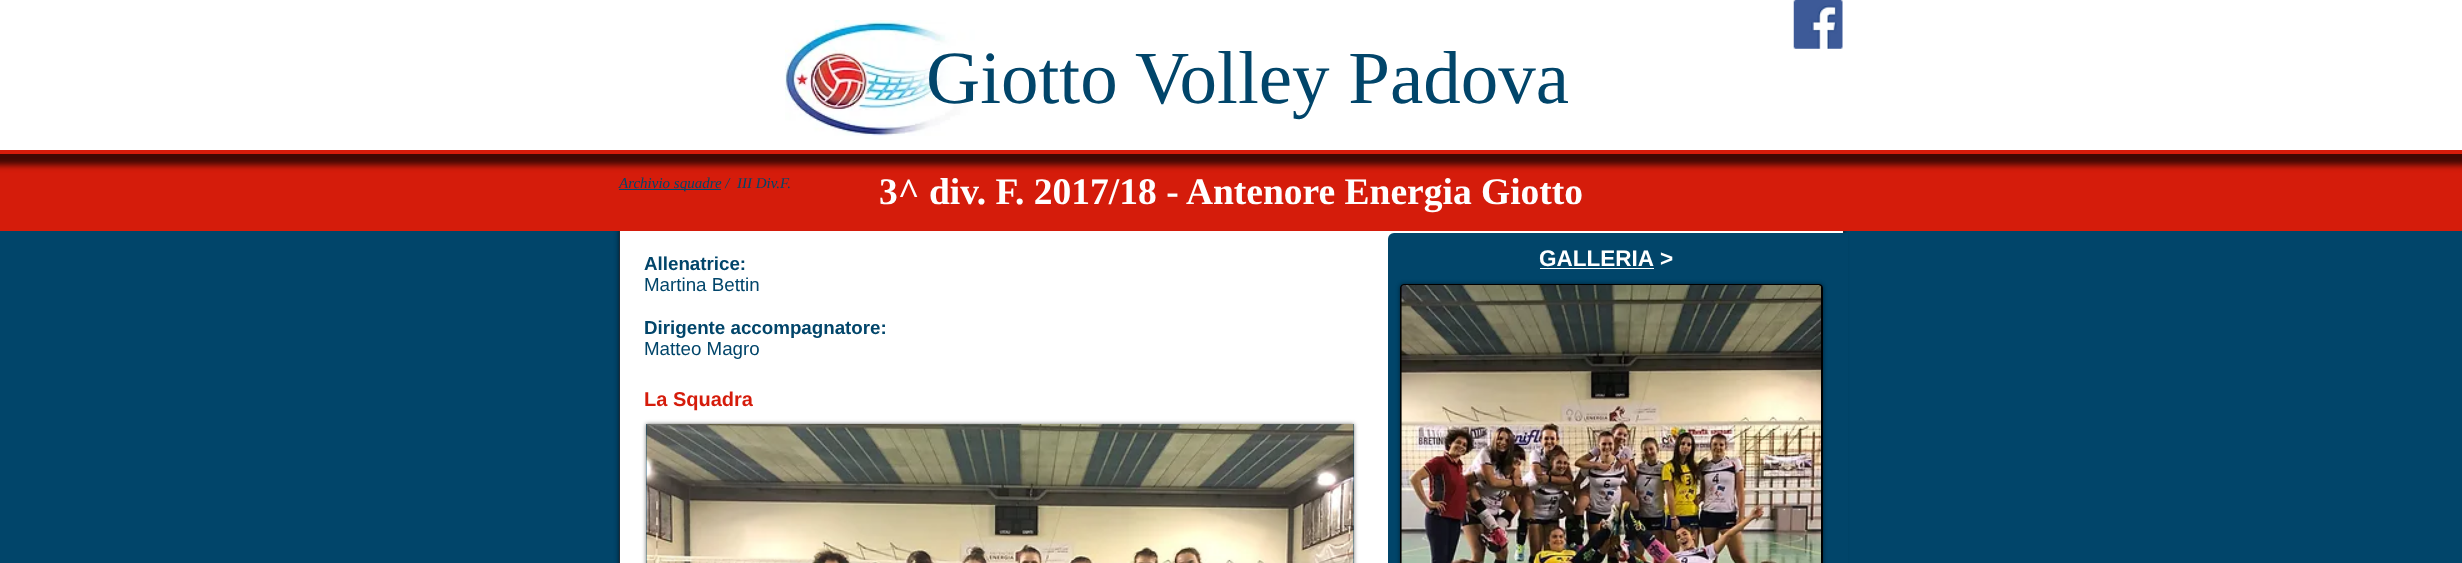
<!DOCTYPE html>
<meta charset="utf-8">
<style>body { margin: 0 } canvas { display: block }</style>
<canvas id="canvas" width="2462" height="563"></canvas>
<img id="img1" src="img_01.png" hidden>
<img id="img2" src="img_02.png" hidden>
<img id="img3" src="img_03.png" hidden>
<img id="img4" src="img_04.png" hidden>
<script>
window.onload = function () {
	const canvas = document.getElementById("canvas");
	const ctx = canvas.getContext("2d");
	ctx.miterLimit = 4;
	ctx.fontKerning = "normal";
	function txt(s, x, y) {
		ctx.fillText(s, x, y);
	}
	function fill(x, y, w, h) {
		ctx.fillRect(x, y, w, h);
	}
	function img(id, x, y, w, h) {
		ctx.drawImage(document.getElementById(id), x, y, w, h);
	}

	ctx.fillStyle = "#01456A";
	fill(0, 0, 2462, 563);
	ctx.fillStyle = "rgba(0, 0, 0, 0.6)";
	ctx.filter = "blur(2.5px)";
	ctx.beginPath();
	ctx.roundRect(619, 155, 1225, 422, 6);
	ctx.fill();
	ctx.filter = "none";
	ctx.fillStyle = "#FFFFFF";
	fill(620, 231, 1223, 332);
	ctx.strokeStyle = "#202B38";
	ctx.strokeRect(619.5, 154.5, 1224, 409);
	ctx.fillStyle = "#D51C0B";
	fill(0, 154, 2462, 77);
	ctx.fillStyle = "rgba(0, 0, 0, 0.7)";
	ctx.filter = "blur(3px)";
	ctx.beginPath();
	ctx.rect(-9, -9, 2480, 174);
	ctx.fill();
	ctx.filter = "none";
	ctx.fillStyle = "#FFFFFF";
	fill(0, 0, 2462, 150);
	ctx.fillStyle = "#D51C0B";
	fill(0, 150, 2462, 4);
	img("img1", 785, 20, 190, 116);
	img("img2", 1793, 0, 50, 49);
	ctx.fillStyle = "#01456A";
	fill(619, 189, 102, 1);
	ctx.beginPath();
	ctx.moveTo(1394, 234.5);
	ctx.lineTo(1846.5, 234.5);
	ctx.lineTo(1846.5, 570.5);
	ctx.lineTo(1394, 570.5);
	ctx.bezierCurveTo(1391.5, 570.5, 1389.5, 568.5, 1389.5, 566);
	ctx.lineTo(1389.5, 239);
	ctx.bezierCurveTo(1389.5, 236.5, 1391.5, 234.5, 1394, 234.5);
	ctx.closePath();
	ctx.fill();
	ctx.strokeStyle = "#01456A";
	ctx.lineWidth = 3;
	ctx.stroke();
	ctx.fillStyle = "#FFFFFF";
	fill(1540, 268, 114, 1);
	ctx.fillStyle = "rgba(0, 0, 0, 0.5)";
	ctx.filter = "blur(2px)";
	ctx.beginPath();
	ctx.roundRect(1400, 284, 423, 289, 4);
	ctx.fill();
	ctx.filter = "none";
	ctx.fillStyle = "#000000";
	ctx.beginPath();
	ctx.roundRect(1400.5, 284.5, 422, 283, 3.5);
	ctx.fill();
	ctx.strokeStyle = "#000000";
	ctx.lineWidth = 1;
	ctx.stroke();
	img("img3", 1401, 285, 420, 278);
	ctx.fillStyle = "rgba(0, 0, 0, 0.5)";
	ctx.filter = "blur(2px)";
	ctx.beginPath();
	ctx.rect(646, 424, 708, 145);
	ctx.fill();
	ctx.filter = "none";
	ctx.fillStyle = "#01456A";
	fill(646, 424, 708, 139);
	img("img4", 646, 423, 708, 140);
	ctx.font = "75px Liberation Serif";
	txt("Giotto Volley Padova", 926, 103);
	ctx.font = "italic 15px Liberation Serif";
	txt("Archivio squadre /  III Div.F.", 619, 188);
	ctx.font = "bold 37.5px Liberation Serif";
	ctx.fillStyle = "#FFFFFF";
	txt("3^ div. F. 2017/18 - Antenore Energia Giotto", 879, 204);
	ctx.font = "bold 18.75px Liberation Sans";
	ctx.fillStyle = "#01456A";
	txt("Allenatrice:", 644, 270);
	ctx.font = "18.75px Liberation Sans";
	txt("Martina Bettin", 644, 291);
	ctx.font = "bold 18.75px Liberation Sans";
	txt("Dirigente accompagnatore:", 644, 334);
	ctx.font = "18.75px Liberation Sans";
	txt("Matteo Magro", 644, 355);
	ctx.font = "bold 22.5px Liberation Sans";
	ctx.fillStyle = "#FFFFFF";
	txt("GALLERIA", 1539, 266);
	txt(">", 1660, 266);
	ctx.font = "bold 20px Liberation Sans";
	ctx.fillStyle = "#D51C0B";
	txt("La Squadra", 644, 406);
};
</script>
